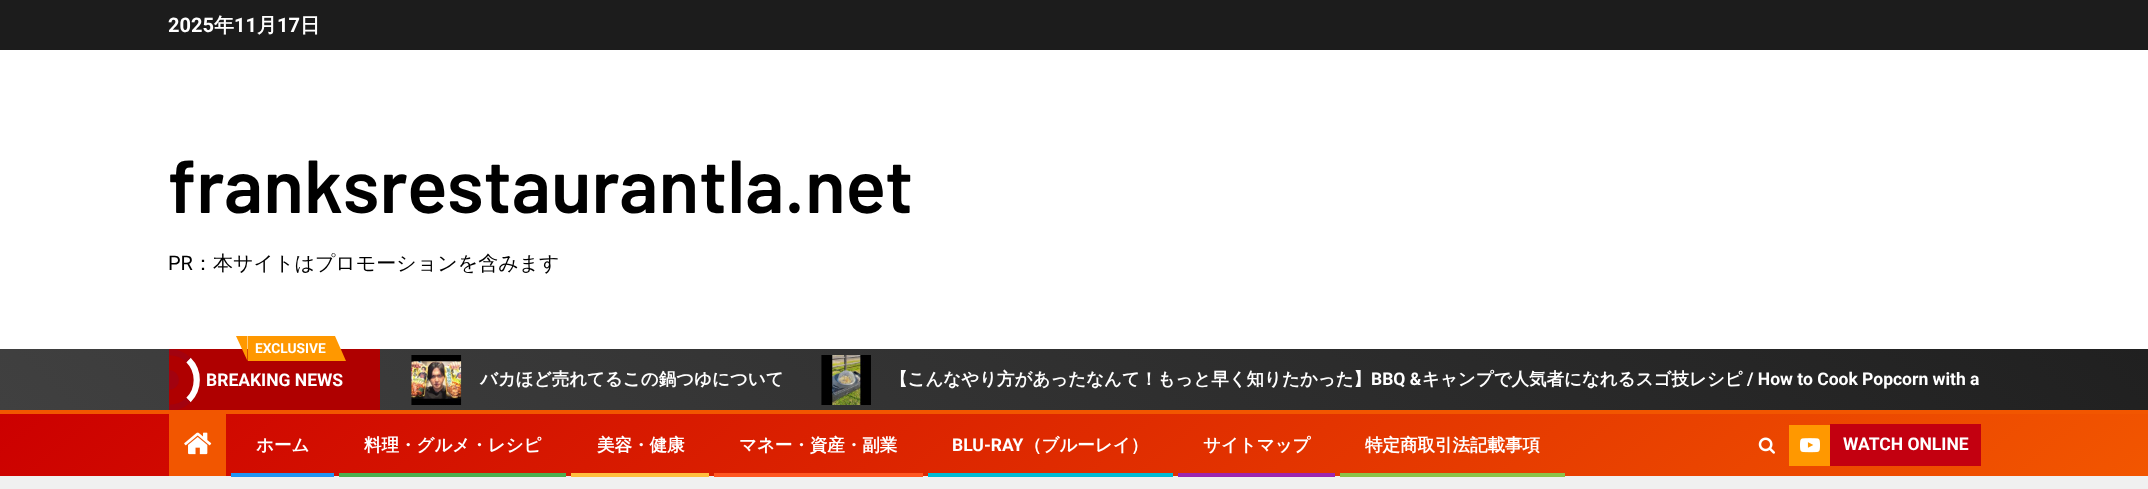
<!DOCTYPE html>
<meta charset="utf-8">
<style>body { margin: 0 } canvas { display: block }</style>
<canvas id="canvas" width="2148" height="489"></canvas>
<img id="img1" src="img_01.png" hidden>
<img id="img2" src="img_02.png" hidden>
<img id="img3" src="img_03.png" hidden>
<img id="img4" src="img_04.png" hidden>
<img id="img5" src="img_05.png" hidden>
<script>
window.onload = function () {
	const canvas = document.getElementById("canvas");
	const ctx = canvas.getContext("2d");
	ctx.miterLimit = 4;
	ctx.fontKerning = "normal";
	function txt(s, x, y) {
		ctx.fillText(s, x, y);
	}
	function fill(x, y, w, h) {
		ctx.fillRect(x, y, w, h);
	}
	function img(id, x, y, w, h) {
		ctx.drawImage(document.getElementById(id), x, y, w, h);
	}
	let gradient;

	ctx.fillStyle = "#F0F0F0";
	fill(0, 0, 2148, 489);
	ctx.fillStyle = "#FFFFFF";
	fill(0, 50, 2148, 299);
	ctx.fillStyle = "#1C1C1C";
	fill(0, 0, 2148, 50);
	gradient = ctx.createLinearGradient(522, 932, 1627, -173);
	gradient.addColorStop(0, "#404040");
	gradient.addColorStop(1, "#202020");
	ctx.fillStyle = gradient;
	fill(0, 349, 2148, 61);
	ctx.fillStyle = "#AF0000";
	fill(169, 349, 211, 61);
	ctx.fillStyle = "#FF9800";
	fill(248, 336, 87, 25);
	ctx.beginPath();
	ctx.moveTo(236, 336);
	ctx.lineTo(247.5, 336);
	ctx.lineTo(247.5, 361);
	ctx.closePath();
	ctx.fill();
	ctx.beginPath();
	ctx.moveTo(346, 361);
	ctx.lineTo(335, 361);
	ctx.lineTo(335, 336);
	ctx.closePath();
	ctx.fill();
	ctx.beginPath();
	ctx.moveTo(188.5, 360);
	ctx.bezierCurveTo(199.5, 371, 199.5, 389, 188.5, 400);
	ctx.strokeStyle = "#FFFFFF";
	ctx.lineWidth = 6.2;
	ctx.stroke();
	ctx.save();
	ctx.beginPath();
	ctx.rect(169, 349, 211, 61);
	ctx.clip();
	ctx.beginPath();
	ctx.moveTo(149, 360);
	ctx.bezierCurveTo(159.5, 349.5, 178, 349.5, 188.5, 360);
	ctx.moveTo(188.5, 400);
	ctx.bezierCurveTo(178, 410.5, 159.5, 410.5, 149, 400);
	ctx.strokeStyle = "#A2020F";
	ctx.stroke();
	ctx.restore();
	ctx.fillStyle = "#A2020F";
	ctx.beginPath();
	ctx.roundRect(169, 370, 10, 20, [0, 10, 10, 0]);
	ctx.fill();
	img("img1", 411, 355, 51, 50);
	img("img2", 821, 355, 50, 50);
	gradient = ctx.createLinearGradient(615, -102, 1534, 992);
	gradient.addColorStop(0, "#CC0000");
	gradient.addColorStop(1, "#F25600");
	ctx.fillStyle = gradient;
	fill(0, 414, 2148, 62);
	ctx.fillStyle = "#F25600";
	fill(0, 410, 2148, 4);
	fill(169, 414, 57, 62);
	img("img3", 184, 432, 28, 23);
	ctx.fillStyle = "#2196F3";
	fill(231, 473, 103, 4);
	ctx.fillStyle = "#4CAF50";
	fill(339, 473, 227, 4);
	ctx.fillStyle = "#FFBF3F";
	fill(571, 473, 138, 4);
	ctx.fillStyle = "#FF5722";
	fill(714, 473, 209, 4);
	ctx.fillStyle = "#00BCD4";
	fill(928, 473, 245, 4);
	ctx.fillStyle = "#9C27B0";
	fill(1178, 473, 157, 4);
	ctx.fillStyle = "#8BC34A";
	fill(1340, 473, 225, 4);
	img("img4", 1758, 437, 17, 17);
	ctx.fillStyle = "#FF9800";
	fill(1789, 425, 41, 41);
	img("img5", 1800, 438, 20, 15);
	ctx.fillStyle = "#C30010";
	fill(1830, 424, 151, 42);
	ctx.font = "bold 20px Roboto";
	ctx.fillStyle = "#FFFFFF";
	txt("2025", 168, 32);
	ctx.font = "bold 20px WenQuanYi Zen Hei";
	txt("年", 214, 32);
	ctx.font = "bold 20px Roboto";
	txt("11", 234, 32);
	ctx.font = "bold 20px WenQuanYi Zen Hei";
	txt("月", 257, 32);
	ctx.font = "bold 20px Roboto";
	txt("17", 277, 32);
	ctx.font = "bold 20px WenQuanYi Zen Hei";
	txt("日", 300, 32);
	ctx.font = "600 75px Barlow";
	ctx.fillStyle = "#000000";
	txt("franksrestaurantla.net", 168, 213);
	ctx.font = "20px Roboto";
	txt("PR", 168, 270);
	ctx.font = "500 20px WenQuanYi Zen Hei";
	txt("：本サイトはプロモーションを含みます", 193, 270);
	ctx.font = "bold 13.75px Roboto";
	ctx.fillStyle = "#FFFFFF";
	txt("EXCLUSIVE", 255, 353);
	ctx.font = "bold 17.5px Roboto";
	txt("BREAKING NEWS", 206, 386);
	ctx.font = "bold 17.5px WenQuanYi Zen Hei";
	txt("バカほど売れてるこの鍋つゆについて", 480, 385);
	txt("【こんなやり方があったなんて！もっと早く知りたかった】", 890, 385);
	ctx.font = "bold 17.5px Roboto";
	txt("BBQ &", 1371, 385);
	ctx.font = "bold 17.5px WenQuanYi Zen Hei";
	txt("キャンプで人気者になれるスゴ技レシピ", 1422, 385);
	ctx.font = "bold 17.5px Roboto";
	txt("/ How to Cook Popcorn with a", 1747, 385);
	ctx.font = "bold 17.5px WenQuanYi Zen Hei";
	txt("ホーム", 256, 451);
	txt("料理・グルメ・レシピ", 364, 451);
	txt("美容・健康", 597, 451);
	txt("マネー・資産・副業", 739, 451);
	ctx.font = "bold 17.5px Roboto";
	txt("BLU-RAY", 952, 451);
	ctx.font = "bold 17.5px WenQuanYi Zen Hei";
	txt("（ブルーレイ）", 1024, 451);
	txt("サイトマップ", 1203, 451);
	txt("特定商取引法記載事項", 1365, 451);
	ctx.font = "bold 17.5px Roboto";
	txt("WATCH ONLINE", 1843, 450);
};
</script>
